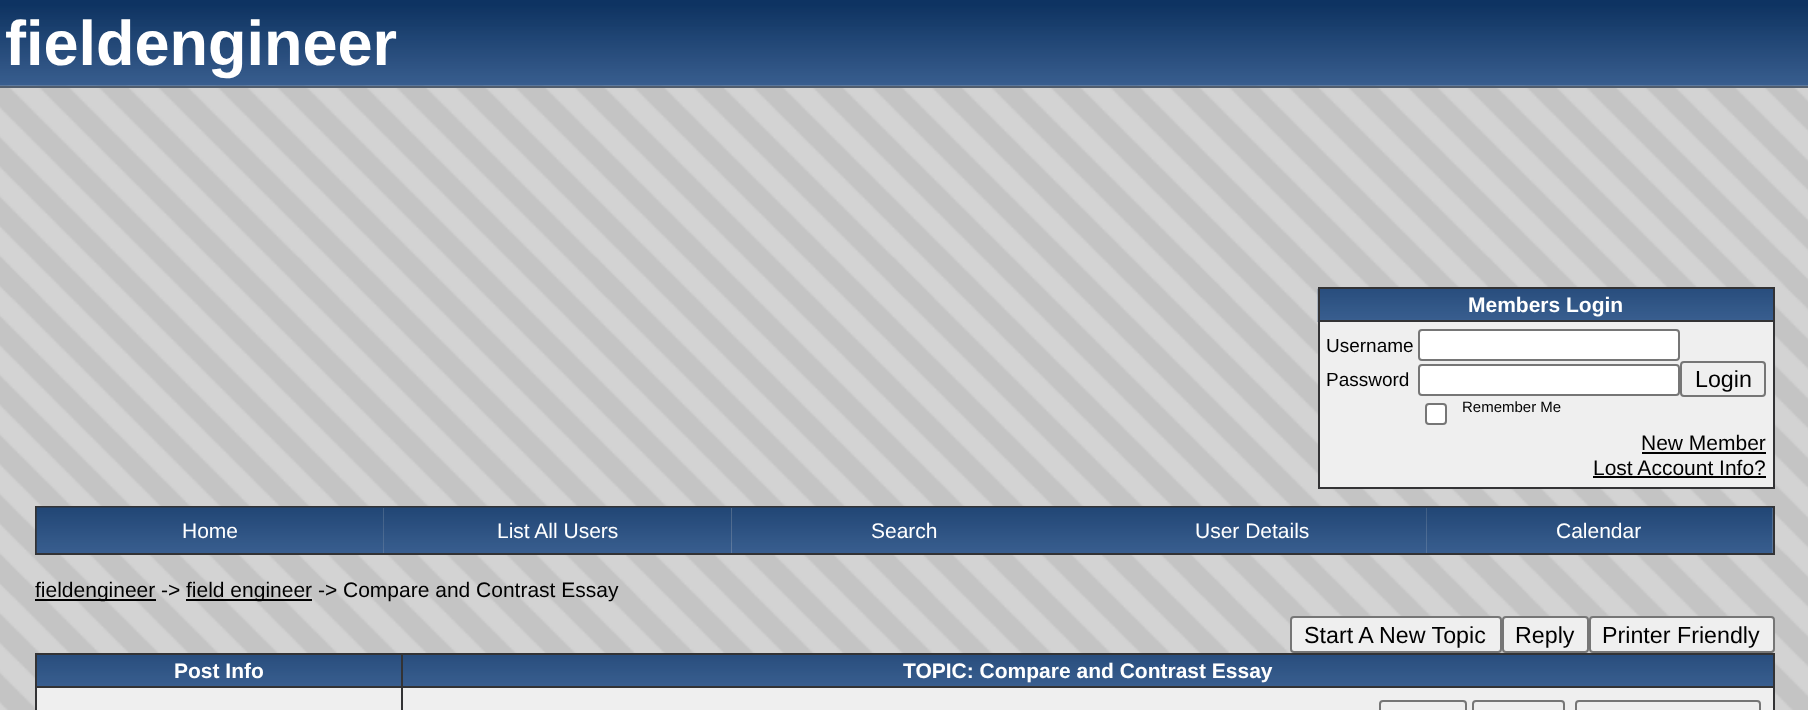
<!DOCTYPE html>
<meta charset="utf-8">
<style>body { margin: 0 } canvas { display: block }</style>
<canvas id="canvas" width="1808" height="710"></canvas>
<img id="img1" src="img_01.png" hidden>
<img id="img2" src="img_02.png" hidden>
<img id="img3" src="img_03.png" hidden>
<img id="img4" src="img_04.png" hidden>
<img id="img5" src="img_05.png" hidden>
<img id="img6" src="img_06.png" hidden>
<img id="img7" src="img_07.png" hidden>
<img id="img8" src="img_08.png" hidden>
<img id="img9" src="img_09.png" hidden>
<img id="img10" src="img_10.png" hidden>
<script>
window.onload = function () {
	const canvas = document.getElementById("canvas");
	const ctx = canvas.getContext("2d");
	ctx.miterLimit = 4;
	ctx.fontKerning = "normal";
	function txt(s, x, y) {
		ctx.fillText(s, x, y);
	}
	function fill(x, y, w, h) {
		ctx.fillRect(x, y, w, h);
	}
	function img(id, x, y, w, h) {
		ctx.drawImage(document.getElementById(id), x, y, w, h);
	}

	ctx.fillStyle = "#FFFFFF";
	fill(0, 0, 1808, 710);
	img("img1", 0, 85, 1808, 625);
	img("img2", 0, 0, 1808, 86);
	ctx.fillStyle = "#525E6E";
	fill(0, 86, 1808, 2);
	ctx.fillStyle = "#EFEFEF";
	fill(1320, 322, 453, 165);
	img("img3", 1317, 288, 456, 34);
	ctx.fillStyle = "#333335";
	fill(1318, 287, 457, 2);
	fill(1773, 287, 2, 201);
	fill(1318, 487, 457, 2);
	fill(1318, 287, 2, 201);
	fill(1318, 320, 457, 2);
	ctx.fillStyle = "#FFFFFF";
	ctx.beginPath();
	ctx.roundRect(1419, 330, 260, 30, 3);
	ctx.fill();
	ctx.strokeStyle = "#767676";
	ctx.lineWidth = 2;
	ctx.stroke();
	ctx.beginPath();
	ctx.roundRect(1419, 365, 260, 30, 3);
	ctx.fill();
	ctx.stroke();
	ctx.beginPath();
	ctx.roundRect(1681, 362, 84, 34, 3);
	ctx.stroke();
	ctx.beginPath();
	ctx.roundRect(1426, 404, 20, 20, 3);
	ctx.fill();
	ctx.stroke();
	ctx.fillStyle = "#000000";
	fill(1642, 452, 124, 2);
	fill(1593, 476, 173, 2);
	ctx.strokeStyle = "#333335";
	ctx.strokeRect(36, 507, 1738, 47);
	img("img4", 36, 507, 348, 46);
	img("img5", 383, 507, 349, 46);
	img("img6", 731, 507, 347, 46);
	img("img7", 1078, 507, 349, 46);
	img("img8", 1426, 507, 347, 46);
	fill(35, 599, 121, 2);
	fill(186, 599, 126, 2);
	ctx.fillStyle = "#EFEFEF";
	ctx.beginPath();
	ctx.roundRect(1291, 617, 210, 35, 3);
	ctx.fill();
	ctx.strokeStyle = "#767676";
	ctx.stroke();
	ctx.beginPath();
	ctx.roundRect(1503, 617, 85, 35, 3);
	ctx.fill();
	ctx.stroke();
	ctx.beginPath();
	ctx.roundRect(1590, 617, 184, 35, 3);
	ctx.fill();
	ctx.stroke();
	fill(37, 688, 1736, 22);
	ctx.fillStyle = "#333335";
	fill(35, 653, 1740, 2);
	fill(1773, 653, 2, 57);
	fill(35, 653, 2, 57);
	img("img9", 37, 655, 364, 31);
	fill(401, 686, 1374, 2);
	fill(401, 686, 2, 24);
	fill(35, 686, 368, 2);
	fill(401, 653, 2, 35);
	img("img10", 403, 655, 1370, 31);
	ctx.beginPath();
	ctx.roundRect(1380, 701, 86, 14, 3);
	ctx.stroke();
	ctx.beginPath();
	ctx.roundRect(1473, 701, 91, 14, 3);
	ctx.stroke();
	ctx.beginPath();
	ctx.roundRect(1576, 701, 184, 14, 3);
	ctx.stroke();
	ctx.font = "bold 63px Liberation Sans";
	ctx.fillStyle = "#FFFFFF";
	txt("fieldengineer", 5, 65);
	ctx.font = "bold 21px Liberation Sans";
	txt("Members Login", 1468, 312);
	ctx.font = "19px Liberation Sans";
	ctx.fillStyle = "#000000";
	txt("Username", 1326, 352);
	txt("Password", 1326, 386);
	ctx.font = "23.25px Liberation Sans";
	txt("Login", 1695, 387);
	ctx.font = "15px Liberation Sans";
	txt("Remember Me", 1462, 412);
	ctx.font = "21px Liberation Sans";
	txt("New Member", 1641, 450);
	txt("Lost Account Info?", 1593, 475);
	ctx.fillStyle = "#FFFFFF";
	txt("Home", 182, 538);
	txt("List All Users", 497, 538);
	txt("Search", 871, 538);
	txt("User Details", 1195, 538);
	txt("Calendar", 1556, 538);
	ctx.fillStyle = "#000000";
	txt("fieldengineer ->", 35, 597);
	txt("field engineer -> Compare and Contrast Essay", 186, 597);
	ctx.font = "23.25px Liberation Sans";
	txt("Start A New Topic", 1304, 643);
	txt("Reply", 1515, 643);
	txt("Printer Friendly", 1602, 643);
	ctx.font = "bold 21px Liberation Sans";
	ctx.fillStyle = "#FFFFFF";
	txt("Post Info", 174, 678);
	txt("TOPIC: Compare and Contrast Essay", 903, 678);
};
</script>
